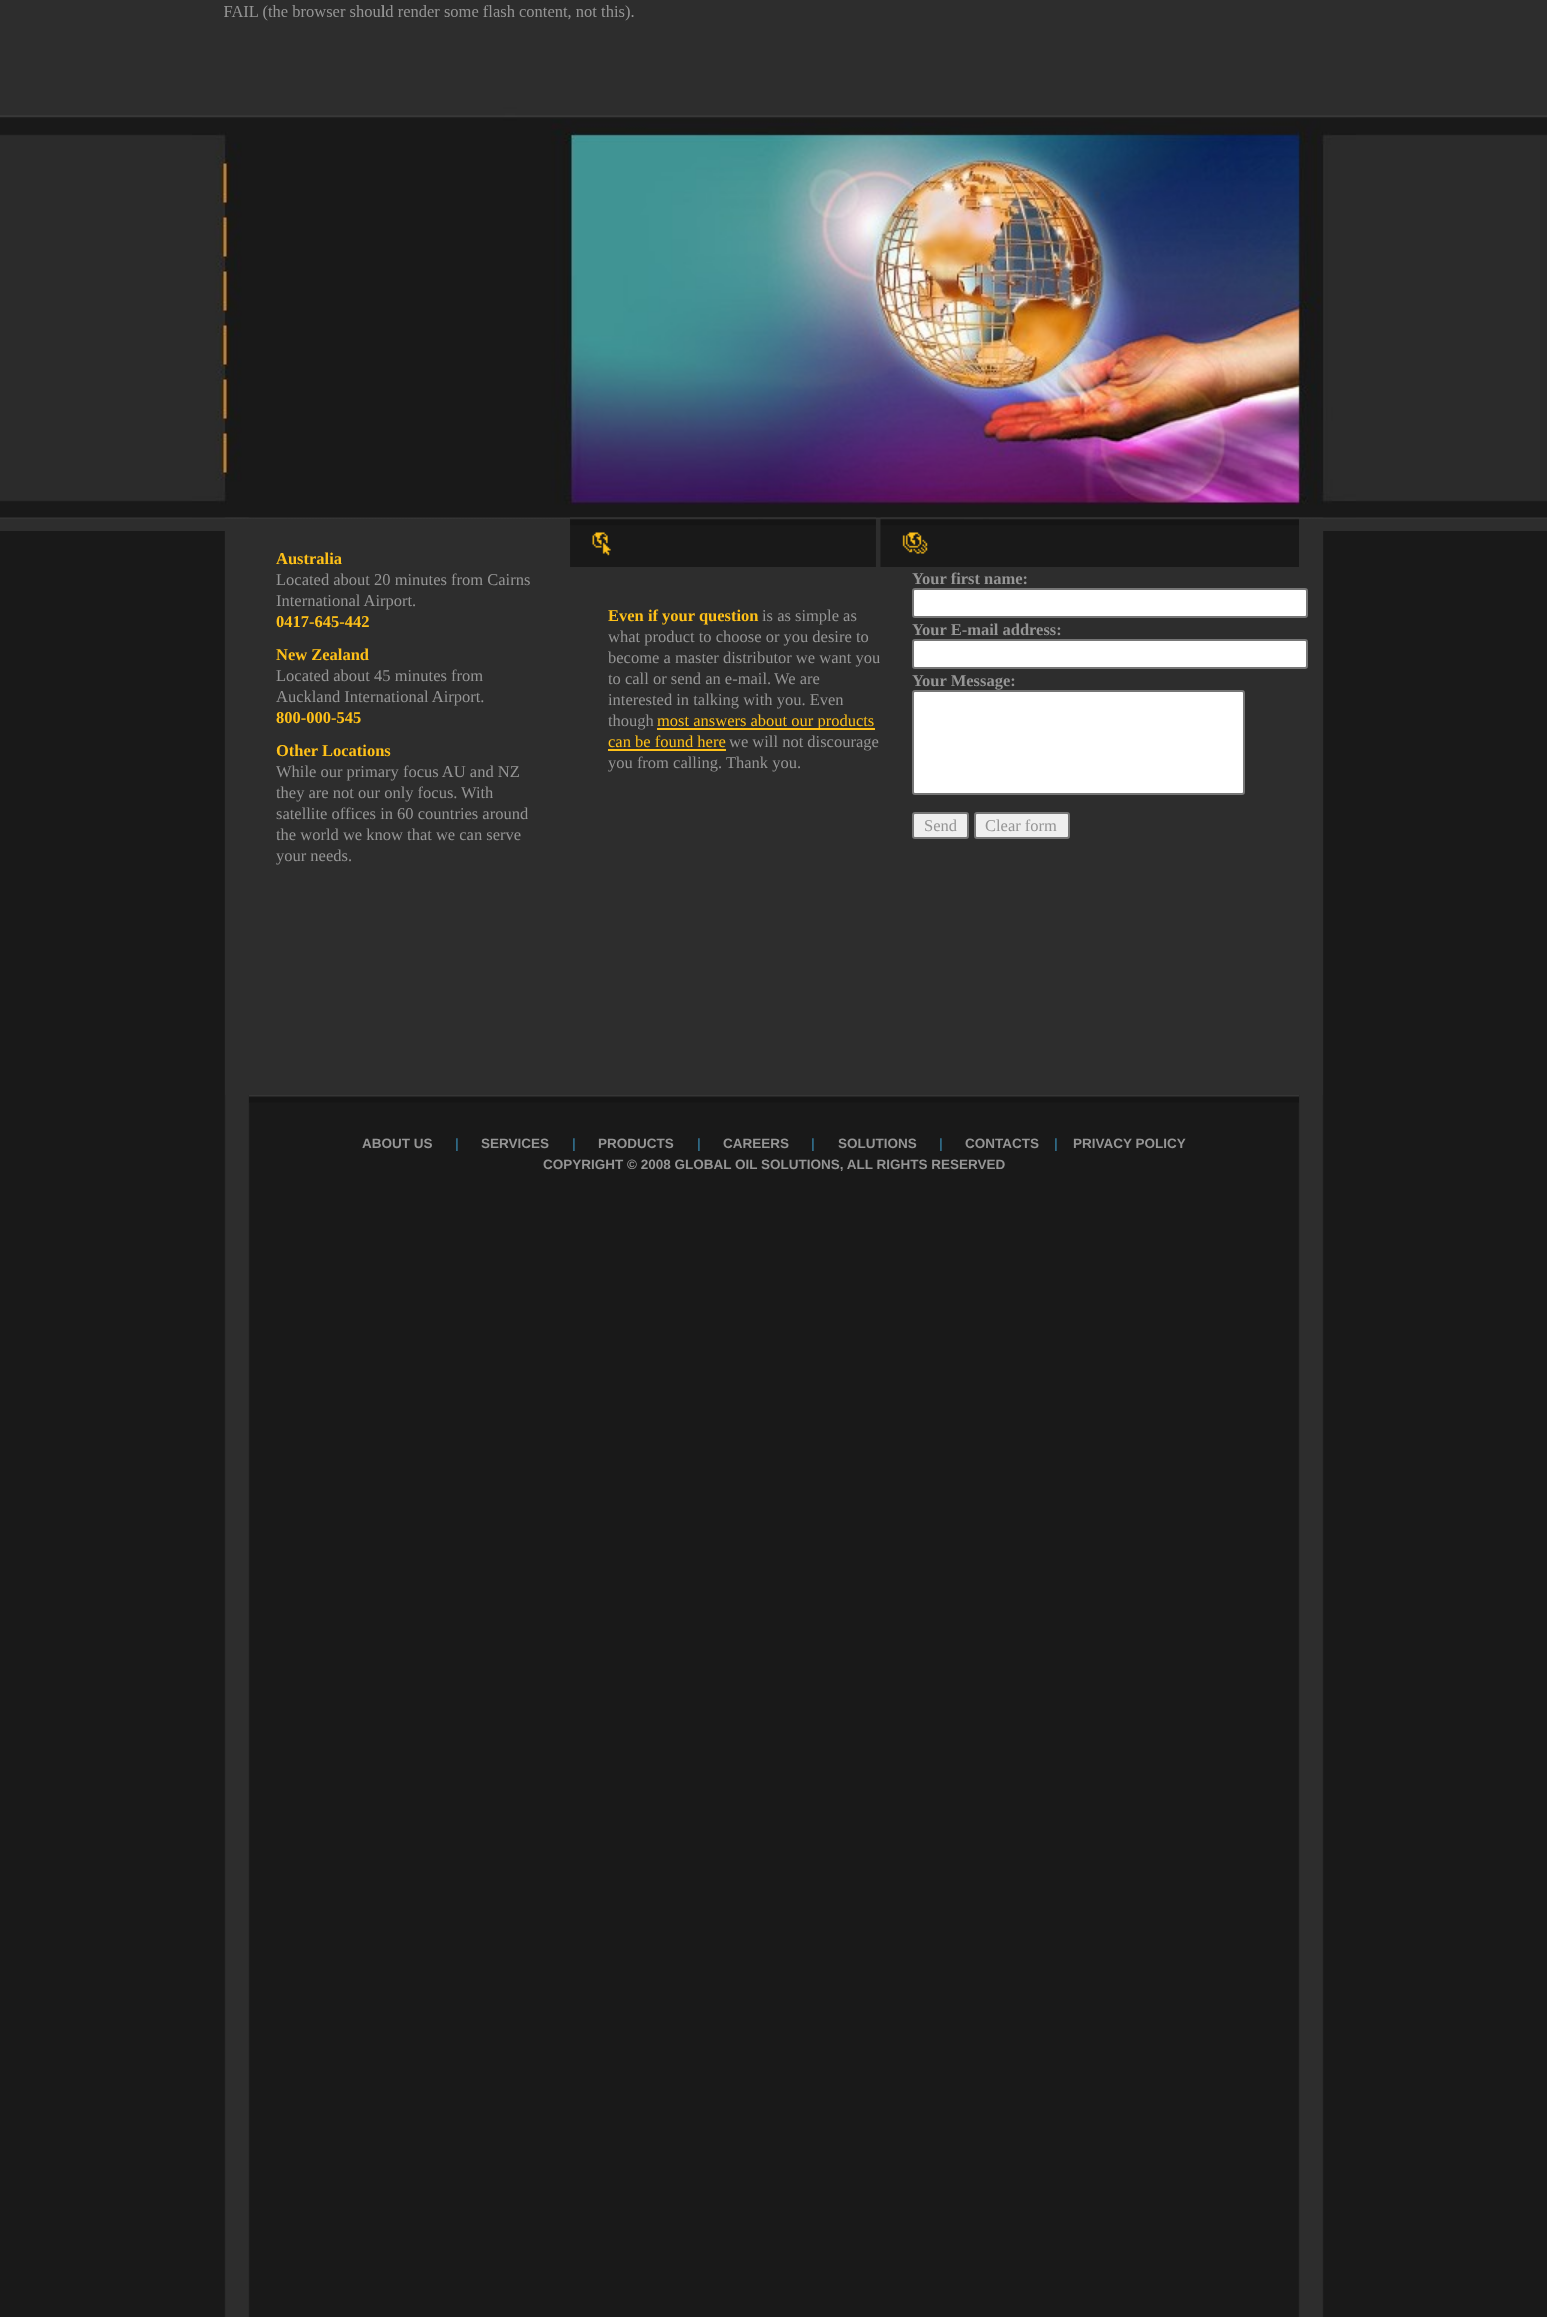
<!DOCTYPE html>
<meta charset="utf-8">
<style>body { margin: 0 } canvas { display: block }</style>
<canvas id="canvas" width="1547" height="2317"></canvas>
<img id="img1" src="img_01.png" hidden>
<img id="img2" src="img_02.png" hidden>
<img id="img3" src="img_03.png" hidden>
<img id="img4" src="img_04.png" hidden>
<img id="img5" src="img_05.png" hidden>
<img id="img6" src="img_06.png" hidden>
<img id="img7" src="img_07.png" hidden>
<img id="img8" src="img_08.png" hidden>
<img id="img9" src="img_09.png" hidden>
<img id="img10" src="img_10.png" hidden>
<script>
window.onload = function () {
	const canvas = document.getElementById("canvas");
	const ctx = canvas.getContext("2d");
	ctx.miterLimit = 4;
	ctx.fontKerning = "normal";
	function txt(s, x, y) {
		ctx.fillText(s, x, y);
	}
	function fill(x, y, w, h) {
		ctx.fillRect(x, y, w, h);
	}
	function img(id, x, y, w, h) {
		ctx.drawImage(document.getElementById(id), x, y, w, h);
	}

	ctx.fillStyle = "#191919";
	fill(0, 0, 1547, 2317);
	img("img1", 0, 0, 1547, 531);
	img("img2", 192, 517, 1164, 1800);
	img("img3", 192, 0, 1164, 518);
	img("img4", 224, 5, 410, 16);
	img("img5", 192, 517, 33, 14);
	img("img6", 1323, 517, 33, 14);
	ctx.fillStyle = "#2D2D2D";
	fill(225, 519, 1098, 576);
	img("img7", 225, 517, 1098, 2);
	img("img8", 570, 517, 306, 50);
	ctx.fillStyle = "#FEC018";
	fill(657, 728, 218, 2);
	fill(608, 749, 118, 2);
	img("img9", 880, 517, 419, 50);
	ctx.fillStyle = "#FFFFFF";
	ctx.beginPath();
	ctx.roundRect(913, 589, 394, 28, 2);
	ctx.fill();
	ctx.strokeStyle = "#767676";
	ctx.lineWidth = 2;
	ctx.stroke();
	ctx.beginPath();
	ctx.roundRect(913, 640, 394, 28, 2);
	ctx.fill();
	ctx.stroke();
	ctx.beginPath();
	ctx.roundRect(913, 691, 331, 103, 2);
	ctx.fill();
	ctx.stroke();
	ctx.fillStyle = "#EFEFEF";
	ctx.beginPath();
	ctx.roundRect(913, 813, 55, 25, 2);
	ctx.fill();
	ctx.stroke();
	ctx.beginPath();
	ctx.roundRect(975, 813, 94, 25, 2);
	ctx.fill();
	ctx.stroke();
	img("img10", 249, 1095, 1050, 8);
	ctx.font = "16.5px Liberation Serif";
	ctx.fillStyle = "#959595";
	txt("l", 381, 17);
	ctx.font = "bold 16.5px Liberation Serif";
	ctx.fillStyle = "#FEC018";
	txt("Australia", 276, 564);
	ctx.font = "16.5px Liberation Serif";
	ctx.fillStyle = "#959595";
	txt("Located about 20 minutes from Cairns", 276, 585);
	txt("International Airport.", 276, 606);
	ctx.font = "bold 16.5px Liberation Serif";
	ctx.fillStyle = "#FEC018";
	txt("0417-645-442", 276, 627);
	txt("New Zealand", 276, 660);
	ctx.font = "16.5px Liberation Serif";
	ctx.fillStyle = "#959595";
	txt("Located about 45 minutes from", 276, 681);
	txt("Auckland International Airport.", 276, 702);
	ctx.font = "bold 16.5px Liberation Serif";
	ctx.fillStyle = "#FEC018";
	txt("800-000-545", 276, 723);
	txt("Other Locations", 276, 756);
	ctx.font = "16.5px Liberation Serif";
	ctx.fillStyle = "#959595";
	txt("While our primary focus AU and NZ", 276, 777);
	txt("they are not our only focus.", 276, 798);
	txt("With", 461, 798);
	txt("satellite offices in 60 countries around", 276, 819);
	txt("the world we know that we can serve", 276, 840);
	txt("your needs.", 276, 861);
	ctx.font = "bold 16.5px Liberation Serif";
	ctx.fillStyle = "#FEC018";
	txt("Even if your question", 608, 621);
	ctx.font = "16.5px Liberation Serif";
	ctx.fillStyle = "#959595";
	txt("is as simple as", 762, 621);
	txt("what product to choose or you desire to", 608, 642);
	txt("become a master distributor we want you", 608, 663);
	txt("to call or send an e-mail.", 608, 684);
	txt("We are", 774, 684);
	txt("interested in talking with you. Even", 608, 705);
	txt("though", 608, 726);
	ctx.fillStyle = "#FEC018";
	txt("most answers about our products", 657, 726);
	txt("can be found here", 608, 747);
	ctx.fillStyle = "#959595";
	txt("we will not discourage", 729, 747);
	txt("you from calling. Thank you.", 608, 768);
	ctx.font = "bold 16.5px Liberation Serif";
	txt("Your first name:", 912, 584);
	txt("Your E-mail address:", 912, 635);
	txt("Your Message:", 912, 686);
	ctx.font = "16.5px Liberation Serif";
	txt("Send", 924, 831);
	txt("Clear form", 985, 831);
	ctx.font = "bold 13.5px Liberation Sans";
	txt("ABOUT US", 362, 1148);
	ctx.fillStyle = "#316C89";
	txt("|", 455, 1148);
	ctx.fillStyle = "#959595";
	txt("SERVICES", 481, 1148);
	ctx.fillStyle = "#316C89";
	txt("|", 572, 1148);
	ctx.fillStyle = "#959595";
	txt("PRODUCTS", 598, 1148);
	ctx.fillStyle = "#316C89";
	txt("|", 697, 1148);
	ctx.fillStyle = "#959595";
	txt("CAREERS", 723, 1148);
	ctx.fillStyle = "#316C89";
	txt("|", 811, 1148);
	ctx.fillStyle = "#959595";
	txt("SOLUTIONS", 838, 1148);
	ctx.fillStyle = "#316C89";
	txt("|", 939, 1148);
	ctx.fillStyle = "#959595";
	txt("CONTACTS", 965, 1148);
	ctx.fillStyle = "#316C89";
	txt("|", 1054, 1148);
	ctx.fillStyle = "#959595";
	txt("PRIVACY POLICY", 1073, 1148);
	txt("COPYRIGHT © 2008 GLOBAL OIL SOLUTIONS, ALL RIGHTS RESERVED", 543, 1169);
};
</script>
